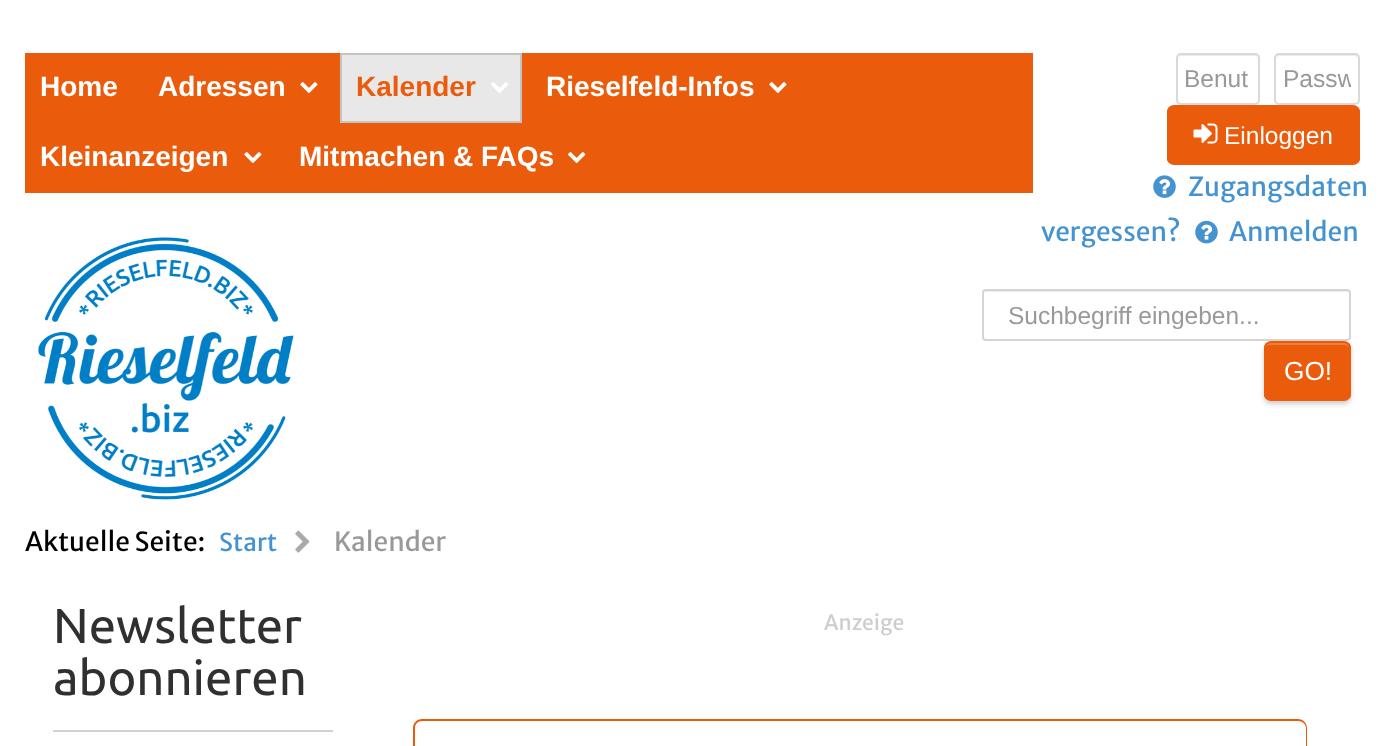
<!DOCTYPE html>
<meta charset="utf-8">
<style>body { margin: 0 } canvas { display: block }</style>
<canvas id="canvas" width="1392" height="746"></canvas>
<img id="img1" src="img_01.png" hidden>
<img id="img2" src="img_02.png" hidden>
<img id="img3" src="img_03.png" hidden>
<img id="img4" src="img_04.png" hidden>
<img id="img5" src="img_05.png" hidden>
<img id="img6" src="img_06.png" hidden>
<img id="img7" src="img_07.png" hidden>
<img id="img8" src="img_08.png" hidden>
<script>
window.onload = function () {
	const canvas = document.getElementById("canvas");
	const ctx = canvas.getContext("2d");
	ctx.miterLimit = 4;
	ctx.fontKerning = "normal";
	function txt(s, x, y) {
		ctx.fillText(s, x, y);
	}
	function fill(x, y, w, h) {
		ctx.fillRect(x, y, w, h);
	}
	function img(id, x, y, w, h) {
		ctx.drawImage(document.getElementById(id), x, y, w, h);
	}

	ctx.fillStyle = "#FFFFFF";
	fill(0, 0, 1392, 746);
	ctx.fillStyle = "#EA5B0C";
	fill(25, 53, 1008, 140);
	img("img1", 300, 82, 18, 11);
	ctx.fillStyle = "#E8E8E8";
	ctx.beginPath();
	ctx.rect(341, 54, 180, 68);
	ctx.fill();
	ctx.strokeStyle = "#C4C4C4";
	ctx.lineWidth = 2;
	ctx.stroke();
	img("img2", 491, 82, 18, 11);
	img("img1", 769, 82, 18, 11);
	img("img1", 244, 152, 18, 11);
	img("img3", 568, 152, 18, 11);
	img("img4", 38, 237, 256, 263);
	ctx.fillStyle = "#ECECEC";
	ctx.beginPath();
	ctx.moveTo(1181, 56);
	ctx.lineTo(1255, 56);
	ctx.bezierCurveTo(1257, 56, 1258, 58, 1258, 60);
	ctx.bezierCurveTo(1258, 51, 1250, 54, 1242, 54);
	ctx.lineTo(1194, 54);
	ctx.bezierCurveTo(1186, 54, 1178, 51, 1178, 60);
	ctx.bezierCurveTo(1178, 58, 1179, 56, 1181, 56);
	ctx.closePath();
	ctx.fill();
	ctx.beginPath();
	ctx.roundRect(1177, 54, 82, 50, 4);
	ctx.strokeStyle = "#D9D9D9";
	ctx.stroke();
	ctx.beginPath();
	ctx.moveTo(1279, 56);
	ctx.lineTo(1354, 56);
	ctx.bezierCurveTo(1356, 56, 1358, 58, 1358, 60);
	ctx.bezierCurveTo(1358, 51, 1350, 54, 1342, 54);
	ctx.lineTo(1292, 54);
	ctx.bezierCurveTo(1284, 54, 1276, 51, 1276, 60);
	ctx.bezierCurveTo(1276, 58, 1277, 56, 1279, 56);
	ctx.closePath();
	ctx.fill();
	ctx.beginPath();
	ctx.roundRect(1275, 54, 84, 50, 4);
	ctx.stroke();
	ctx.save();
	ctx.beginPath();
	ctx.roundRect(1167, 105, 193, 60, 7);
	ctx.clip();
	ctx.fillStyle = "#EA5B0C";
	fill(1167, 107, 193, 56);
	ctx.restore();
	ctx.beginPath();
	ctx.roundRect(1168, 106, 191, 58, 6);
	ctx.strokeStyle = "#EA5B0C";
	ctx.stroke();
	img("img5", 1193, 123, 25, 21);
	img("img6", 1153, 175, 23, 23);
	img("img7", 1195, 220, 23, 24);
	ctx.beginPath();
	ctx.moveTo(985, 292);
	ctx.lineTo(1348, 292);
	ctx.lineTo(1349, 294);
	ctx.bezierCurveTo(1349, 293, 1349, 291, 1347, 291);
	ctx.lineTo(986, 291);
	ctx.bezierCurveTo(984, 291, 984, 293, 984, 294);
	ctx.bezierCurveTo(984, 293, 984, 292, 985, 292);
	ctx.closePath();
	ctx.fill();
	ctx.beginPath();
	ctx.roundRect(983, 290, 367, 50, 3);
	ctx.strokeStyle = "#D5D5D5";
	ctx.stroke();
	ctx.fillStyle = "rgba(0, 0, 0, 0.2)";
	ctx.filter = "blur(2.5px)";
	ctx.beginPath();
	ctx.roundRect(1264, 345, 87, 59, 7);
	ctx.fill();
	ctx.filter = "none";
	ctx.save();
	ctx.beginPath();
	ctx.roundRect(1264, 341, 87, 60, 7);
	ctx.clip();
	ctx.fillStyle = "#EA5B0C";
	fill(1264, 343, 87, 56);
	ctx.restore();
	ctx.fillStyle = "#EE7C3D";
	ctx.beginPath();
	ctx.moveTo(1270, 345);
	ctx.lineTo(1344, 345);
	ctx.bezierCurveTo(1347, 345, 1349, 347, 1349, 350);
	ctx.bezierCurveTo(1349, 340, 1340, 343, 1332, 343);
	ctx.lineTo(1282, 343);
	ctx.bezierCurveTo(1274, 343, 1265, 340, 1265, 350);
	ctx.bezierCurveTo(1265, 347, 1268, 345, 1270, 345);
	ctx.closePath();
	ctx.fill();
	ctx.beginPath();
	ctx.roundRect(1265, 342, 85, 58, 6);
	ctx.strokeStyle = "#EA5B0C";
	ctx.stroke();
	img("img8", 295, 530, 15, 23);
	ctx.fillStyle = "#D1D1D1";
	fill(53, 730, 280, 2);
	ctx.fillStyle = "#EA5B0C";
	ctx.beginPath();
	ctx.moveTo(422, 719);
	ctx.lineTo(1298, 719);
	ctx.bezierCurveTo(1303, 719, 1307, 723, 1307, 728);
	ctx.lineTo(1307, 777);
	ctx.lineTo(413, 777);
	ctx.lineTo(413, 728);
	ctx.bezierCurveTo(413, 723, 417, 719, 422, 719);
	ctx.closePath();
	ctx.moveTo(422, 721);
	ctx.lineTo(1298, 721);
	ctx.bezierCurveTo(1302, 721, 1306, 724, 1306, 728);
	ctx.lineTo(1306, 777);
	ctx.lineTo(415, 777);
	ctx.lineTo(415, 728);
	ctx.bezierCurveTo(415, 724, 418, 721, 422, 721);
	ctx.closePath();
	ctx.fill("evenodd");
	ctx.font = "bold 28px Liberation Sans";
	ctx.fillStyle = "#FFFFFF";
	txt("Home", 40, 96);
	txt("Adressen", 158, 96);
	ctx.fillStyle = "#EA5B0C";
	txt("Kalender", 356, 96);
	ctx.fillStyle = "#FFFFFF";
	txt("Rieselfeld-Infos", 546, 96);
	txt("Kleinanzeigen", 40, 166);
	txt("Mitmachen & FAQs", 299, 166);
	ctx.font = "24.5px Liberation Sans";
	ctx.fillStyle = "#999999";
	txt("Benut", 1184, 87);
	ctx.save();
	ctx.beginPath();
	ctx.rect(1283, 65, 68, 28);
	ctx.clip();
	txt("Passw", 1283, 87);
	ctx.restore();
	ctx.fillStyle = "#FFFFFF";
	txt("Einloggen", 1224, 144);
	ctx.font = "26.25px Merriweather Sans";
	ctx.fillStyle = "#4493D0";
	txt("Zugangsdaten", 1188, 196);
	txt("vergessen?", 1041, 241);
	txt("Anmelden", 1229, 241);
	ctx.font = "24.5px Liberation Sans";
	ctx.fillStyle = "#999999";
	txt("Suchbegriff eingeben...", 1008, 324);
	ctx.font = "26.25px Liberation Sans";
	ctx.fillStyle = "#FFFFFF";
	txt("GO!", 1284, 380);
	ctx.font = "26.25px Merriweather Sans";
	ctx.fillStyle = "#000000";
	txt("Aktuelle Seite:", 25, 551);
	ctx.font = "24.5px Merriweather Sans";
	ctx.fillStyle = "#4493D0";
	txt("Start", 219, 551);
	ctx.font = "26.25px Merriweather Sans";
	ctx.fillStyle = "#999999";
	txt("Kalender", 334, 551);
	ctx.font = "49px Ubuntu";
	ctx.fillStyle = "#303030";
	txt("Newsletter", 53, 643);
	txt("abonnieren", 53, 695);
	ctx.font = "21px Merriweather Sans";
	ctx.fillStyle = "#CDCDCD";
	txt("Anzeige", 824, 630);
};
</script>
